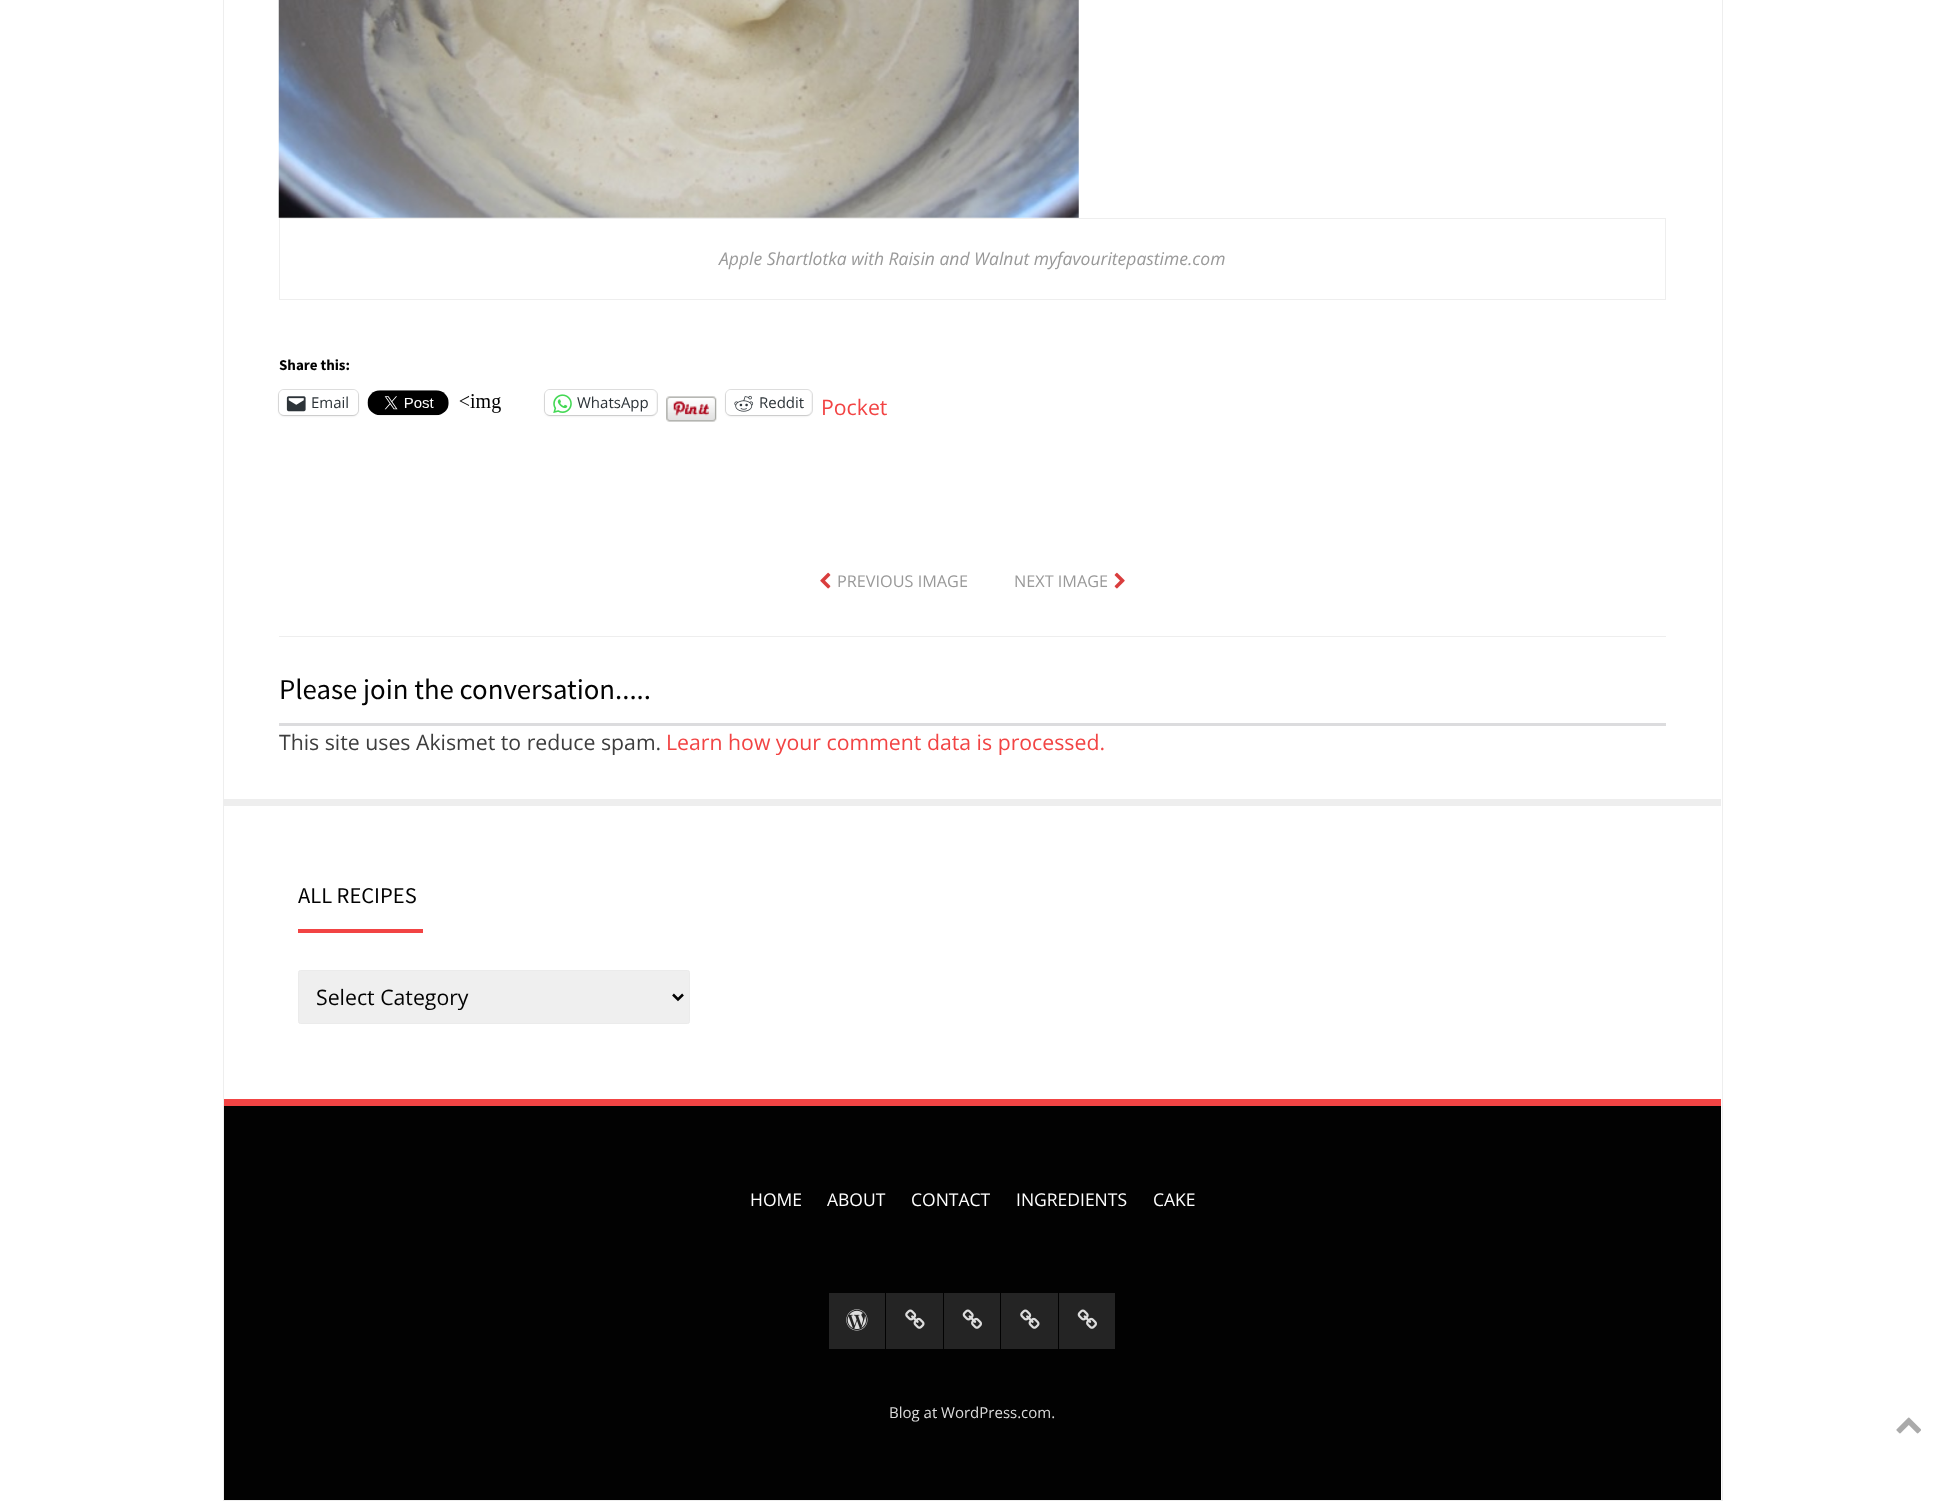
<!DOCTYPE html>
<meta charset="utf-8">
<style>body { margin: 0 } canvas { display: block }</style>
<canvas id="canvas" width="1945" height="1505"></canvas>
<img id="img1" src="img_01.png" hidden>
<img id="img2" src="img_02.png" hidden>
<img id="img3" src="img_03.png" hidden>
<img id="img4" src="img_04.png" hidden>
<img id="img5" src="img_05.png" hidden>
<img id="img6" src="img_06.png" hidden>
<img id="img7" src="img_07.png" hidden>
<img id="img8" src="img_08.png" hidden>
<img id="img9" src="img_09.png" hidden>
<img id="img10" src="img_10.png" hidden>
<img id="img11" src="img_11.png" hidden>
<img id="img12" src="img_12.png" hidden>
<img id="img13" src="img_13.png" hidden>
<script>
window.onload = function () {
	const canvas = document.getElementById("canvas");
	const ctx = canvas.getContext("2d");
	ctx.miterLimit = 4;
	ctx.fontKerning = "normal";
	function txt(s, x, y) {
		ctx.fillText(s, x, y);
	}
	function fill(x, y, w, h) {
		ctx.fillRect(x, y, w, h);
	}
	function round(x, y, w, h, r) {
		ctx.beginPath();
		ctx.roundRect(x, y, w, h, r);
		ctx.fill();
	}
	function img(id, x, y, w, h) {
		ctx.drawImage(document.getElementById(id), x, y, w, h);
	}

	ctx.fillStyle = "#FFFFFF";
	fill(0, 0, 1945, 1505);
	ctx.strokeStyle = "#EEEEEE";
	ctx.strokeRect(223.5, -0.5, 1499, 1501);
	img("img1", 278, 0, 801, 218);
	ctx.strokeRect(279.5, 218.5, 1386, 81);
	ctx.beginPath();
	ctx.roundRect(278.5, 389.5, 80, 26, 5.5);
	ctx.strokeStyle = "#E0E0E0";
	ctx.stroke();
	ctx.fillStyle = "rgba(0, 0, 0, 0.12)";
	ctx.filter = "blur(1px)";
	ctx.beginPath();
	ctx.roundRect(279, 391, 79, 25, 5);
	ctx.fill();
	ctx.filter = "none";
	ctx.fillStyle = "#FFFFFF";
	round(279, 390, 79, 25, 5);
	img("img2", 286, 396, 20, 16);
	img("img3", 367, 390, 82, 26);
	img("img4", 459, 394, 42, 19);
	ctx.beginPath();
	ctx.roundRect(544.5, 389.5, 113, 26, 5.5);
	ctx.stroke();
	ctx.fillStyle = "rgba(0, 0, 0, 0.12)";
	ctx.filter = "blur(1px)";
	ctx.beginPath();
	ctx.roundRect(545, 391, 111, 25, 5);
	ctx.fill();
	ctx.filter = "none";
	ctx.fillStyle = "#FFFFFF";
	round(545, 390, 111, 25, 5);
	img("img5", 553, 394, 19, 19);
	img("img6", 666, 396, 51, 26);
	ctx.beginPath();
	ctx.roundRect(725.5, 389.5, 87, 26, 5.5);
	ctx.stroke();
	ctx.fillStyle = "rgba(0, 0, 0, 0.12)";
	ctx.filter = "blur(1px)";
	ctx.beginPath();
	ctx.roundRect(726, 391, 85, 25, 5);
	ctx.fill();
	ctx.filter = "none";
	ctx.fillStyle = "#FFFFFF";
	round(726, 390, 85, 25, 5);
	img("img7", 734, 395, 20, 17);
	img("img8", 820, 572, 11, 17);
	img("img9", 1114, 572, 11, 17);
	ctx.fillStyle = "#EEEEEE";
	fill(279, 636, 1387, 1);
	ctx.fillStyle = "#DCDCDE";
	fill(279, 723, 1387, 3);
	ctx.fillStyle = "#EEEEEE";
	fill(224, 799, 1497, 7);
	ctx.fillStyle = "#F24444";
	fill(298, 929, 125, 4);
	ctx.fillStyle = "#EFEFEF";
	ctx.beginPath();
	ctx.roundRect(298.5, 970.5, 391, 53, 2);
	ctx.fill();
	ctx.strokeStyle = "#EBEBEB";
	ctx.stroke();
	ctx.beginPath();
	ctx.moveTo(673, 994.5);
	ctx.lineTo(678, 999.5);
	ctx.lineTo(683, 994.5);
	ctx.strokeStyle = "#020202";
	ctx.lineWidth = 2.5;
	ctx.stroke();
	ctx.fillStyle = "#020202";
	fill(224, 1106, 1497, 394);
	ctx.fillStyle = "#F24444";
	fill(224, 1099, 1497, 7);
	ctx.fillStyle = "#242424";
	fill(829, 1293, 56, 56);
	img("img10", 846, 1309, 22, 22);
	fill(886, 1293, 57, 56);
	img("img11", 905, 1309, 20, 20);
	fill(944, 1293, 56, 56);
	img("img12", 962, 1309, 20, 20);
	fill(1001, 1293, 57, 56);
	img("img11", 1020, 1309, 20, 20);
	fill(1059, 1293, 56, 56);
	img("img12", 1077, 1309, 20, 20);
	img("img13", 1896, 1417, 25, 17);
	ctx.font = "italic 17.5px Open Sans";
	ctx.fillStyle = "#999999";
	txt("Apple Shartlotka with Raisin and Walnut myfavouritepastime.com", 719, 265);
	ctx.font = "bold 15px Source Sans Pro";
	ctx.fillStyle = "#020202";
	txt("Share this:", 279, 370);
	ctx.font = "15px Open Sans";
	ctx.fillStyle = "#2C3338";
	txt("Email", 311, 408);
	txt("WhatsApp", 577, 408);
	txt("Reddit", 759, 408);
	ctx.font = "21.25px Open Sans";
	ctx.fillStyle = "#F24444";
	txt("Pocket", 821, 415);
	ctx.font = "16.25px Open Sans";
	ctx.fillStyle = "#999999";
	txt("PREVIOUS IMAGE", 837, 587);
	txt("NEXT IMAGE", 1014, 587);
	ctx.font = "28.75px Source Sans Pro";
	ctx.fillStyle = "#020202";
	txt("Please join the conversation.....", 279, 699);
	ctx.font = "21.25px Open Sans";
	ctx.fillStyle = "#3D3D3D";
	txt("This site uses Akismet to reduce spam.", 279, 750);
	ctx.fillStyle = "#F24444";
	txt("Learn how your comment data is processed.", 666, 750);
	ctx.font = "22.5px Source Sans Pro";
	ctx.fillStyle = "#020202";
	txt("ALL RECIPES", 298, 903);
	ctx.font = "21.25px Open Sans";
	txt("Select Category", 316, 1005);
	ctx.font = "17.5px Open Sans";
	ctx.fillStyle = "#FFFFFF";
	txt("HOME", 750, 1206);
	txt("ABOUT", 827, 1206);
	txt("CONTACT", 911, 1206);
	txt("INGREDIENTS", 1016, 1206);
	txt("CAKE", 1153, 1206);
	ctx.font = "15px Open Sans";
	ctx.fillStyle = "#DDDDDD";
	txt("Blog at WordPress.com.", 889, 1418);
};
</script>
